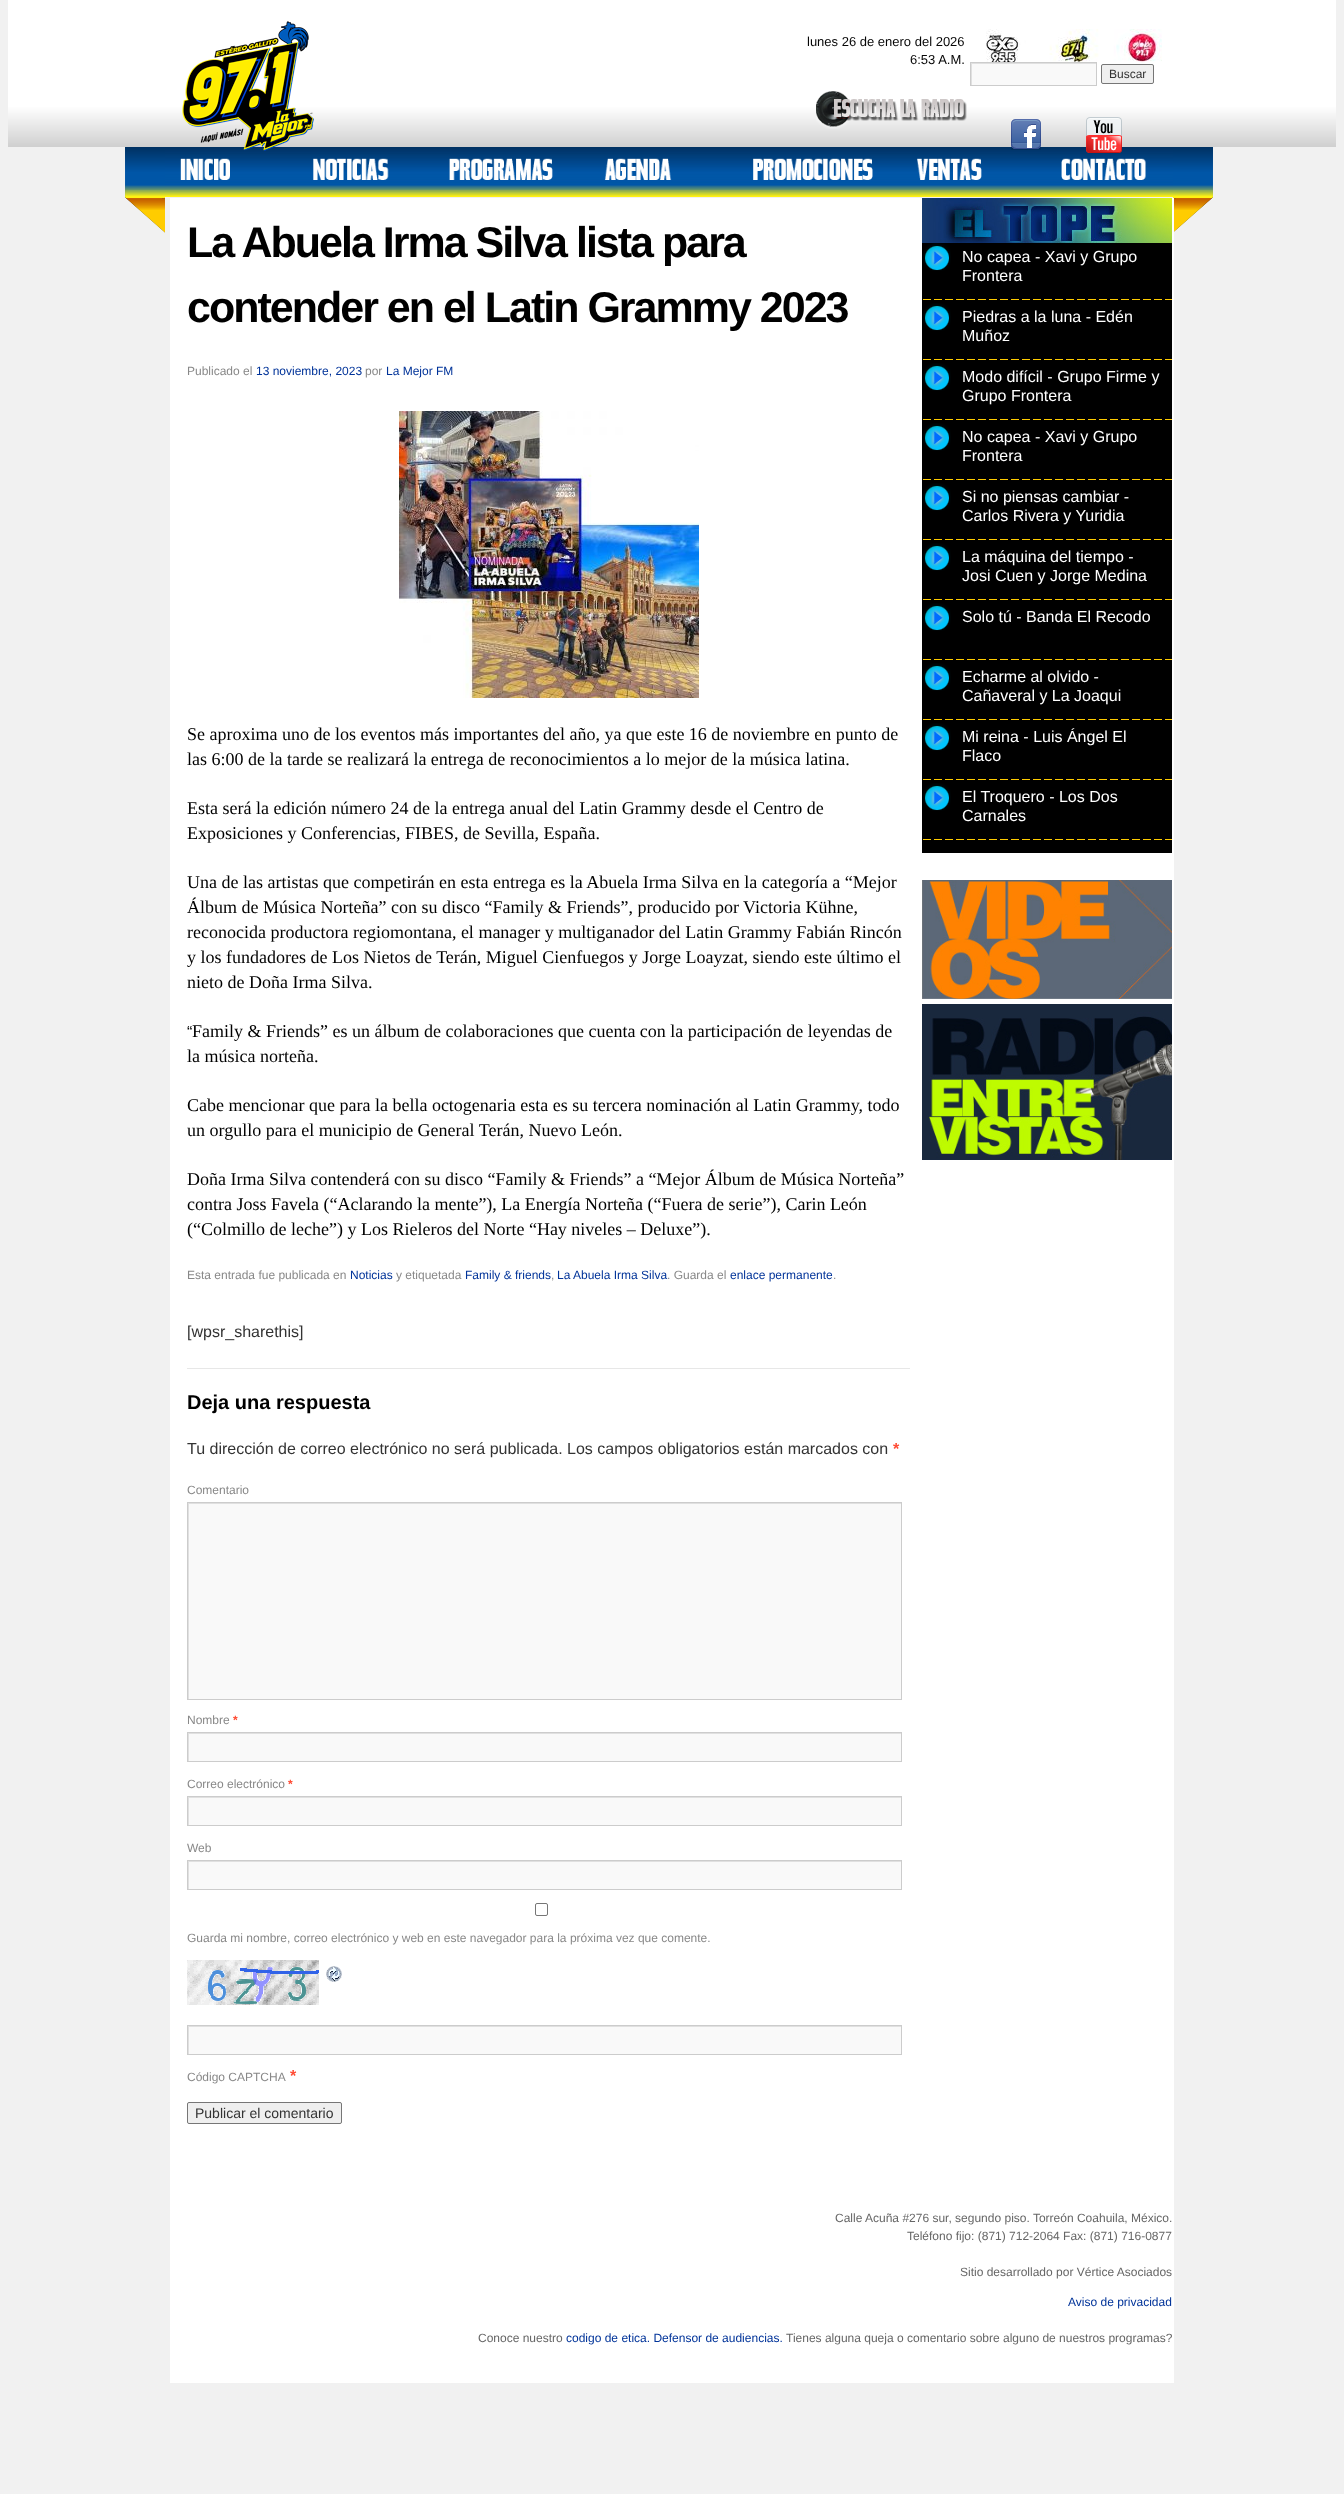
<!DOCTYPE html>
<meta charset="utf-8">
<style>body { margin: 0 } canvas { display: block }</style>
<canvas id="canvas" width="1344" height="2494"></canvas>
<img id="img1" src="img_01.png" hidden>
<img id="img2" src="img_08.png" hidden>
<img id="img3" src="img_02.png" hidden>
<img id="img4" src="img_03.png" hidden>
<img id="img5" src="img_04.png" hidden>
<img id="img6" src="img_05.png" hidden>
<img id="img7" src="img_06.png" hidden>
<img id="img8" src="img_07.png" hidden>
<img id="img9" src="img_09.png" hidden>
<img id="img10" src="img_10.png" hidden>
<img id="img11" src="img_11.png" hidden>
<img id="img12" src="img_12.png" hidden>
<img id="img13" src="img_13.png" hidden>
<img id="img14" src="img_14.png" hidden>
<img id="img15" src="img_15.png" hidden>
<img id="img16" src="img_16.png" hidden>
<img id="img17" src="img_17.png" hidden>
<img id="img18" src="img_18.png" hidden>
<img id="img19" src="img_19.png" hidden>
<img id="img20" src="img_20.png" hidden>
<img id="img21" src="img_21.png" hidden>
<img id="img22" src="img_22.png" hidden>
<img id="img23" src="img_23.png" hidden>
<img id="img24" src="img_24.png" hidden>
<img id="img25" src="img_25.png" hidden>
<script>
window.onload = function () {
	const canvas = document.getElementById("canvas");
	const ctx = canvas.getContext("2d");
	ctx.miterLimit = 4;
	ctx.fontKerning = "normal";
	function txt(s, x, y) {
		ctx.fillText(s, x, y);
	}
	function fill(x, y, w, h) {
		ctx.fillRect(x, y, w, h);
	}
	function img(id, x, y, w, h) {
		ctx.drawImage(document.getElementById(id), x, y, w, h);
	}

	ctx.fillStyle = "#F1F1F1";
	fill(0, 0, 1344, 2494);
	img("img1", 8, 0, 1328, 147);
	img("img2", 165, 147, 1008, 50);
	img("img3", 182, 21, 132, 130);
	img("img4", 816, 91, 151, 38);
	img("img5", 986, 29, 176, 34);
	ctx.fillStyle = "#F9F9F9";
	fill(972, 64, 124, 21);
	ctx.save();
	ctx.beginPath();
	ctx.rect(971, 63, 125, 22);
	ctx.clip();
	ctx.fillStyle = "#E0E0E0";
	ctx.beginPath();
	ctx.moveTo(872, -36);
	ctx.lineTo(1195, -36);
	ctx.lineTo(1195, 184);
	ctx.lineTo(872, 184);
	ctx.closePath();
	ctx.moveTo(972, 64);
	ctx.lineTo(1097, 64);
	ctx.lineTo(1097, 86);
	ctx.lineTo(972, 86);
	ctx.closePath();
	ctx.fill("evenodd");
	ctx.restore();
	ctx.strokeStyle = "#CCCCCC";
	ctx.strokeRect(970.5, 62.5, 126, 23);
	ctx.fillStyle = "#EFEFEF";
	ctx.beginPath();
	ctx.roundRect(1101.5, 64.5, 52, 19, 1.5);
	ctx.fill();
	ctx.strokeStyle = "#767676";
	ctx.stroke();
	img("img6", 1011, 119, 30, 31);
	img("img7", 1086, 117, 36, 36);
	img("img8", 125, 147, 40, 86);
	img("img9", 180, 158, 50, 22);
	img("img10", 313, 158, 76, 22);
	img("img11", 449, 158, 104, 22);
	img("img12", 604, 158, 68, 22);
	img("img13", 753, 158, 120, 22);
	img("img14", 917, 158, 65, 22);
	img("img15", 1061, 158, 85, 22);
	img("img16", 1173, 147, 40, 85);
	ctx.fillStyle = "#FFFFFF";
	fill(170, 198, 1004, 2185);
	img("img17", 399, 411, 300, 287);
	ctx.fillStyle = "#E7E7E7";
	fill(187, 1368, 723, 1);
	ctx.fillStyle = "#F9F9F9";
	fill(189, 1504, 712, 195);
	ctx.save();
	ctx.beginPath();
	ctx.rect(188, 1503, 713, 196);
	ctx.clip();
	ctx.fillStyle = "#E0E0E0";
	ctx.beginPath();
	ctx.moveTo(89, 1404);
	ctx.lineTo(1000, 1404);
	ctx.lineTo(1000, 1798);
	ctx.lineTo(89, 1798);
	ctx.closePath();
	ctx.moveTo(189, 1504);
	ctx.lineTo(902, 1504);
	ctx.lineTo(902, 1700);
	ctx.lineTo(189, 1700);
	ctx.closePath();
	ctx.fill("evenodd");
	ctx.restore();
	ctx.strokeStyle = "#CCCCCC";
	ctx.strokeRect(187.5, 1502.5, 714, 197);
	fill(189, 1734, 712, 27);
	ctx.save();
	ctx.beginPath();
	ctx.rect(188, 1733, 713, 28);
	ctx.clip();
	ctx.fillStyle = "#E0E0E0";
	ctx.beginPath();
	ctx.moveTo(89, 1634);
	ctx.lineTo(1000, 1634);
	ctx.lineTo(1000, 1860);
	ctx.lineTo(89, 1860);
	ctx.closePath();
	ctx.moveTo(189, 1734);
	ctx.lineTo(902, 1734);
	ctx.lineTo(902, 1762);
	ctx.lineTo(189, 1762);
	ctx.closePath();
	ctx.fill("evenodd");
	ctx.restore();
	ctx.strokeRect(187.5, 1732.5, 714, 29);
	fill(189, 1798, 712, 27);
	ctx.save();
	ctx.beginPath();
	ctx.rect(188, 1797, 713, 28);
	ctx.clip();
	ctx.fillStyle = "#E0E0E0";
	ctx.beginPath();
	ctx.moveTo(89, 1698);
	ctx.lineTo(1000, 1698);
	ctx.lineTo(1000, 1924);
	ctx.lineTo(89, 1924);
	ctx.closePath();
	ctx.moveTo(189, 1798);
	ctx.lineTo(902, 1798);
	ctx.lineTo(902, 1826);
	ctx.lineTo(189, 1826);
	ctx.closePath();
	ctx.fill("evenodd");
	ctx.restore();
	ctx.strokeRect(187.5, 1796.5, 714, 29);
	fill(189, 1862, 712, 27);
	ctx.save();
	ctx.beginPath();
	ctx.rect(188, 1861, 713, 28);
	ctx.clip();
	ctx.fillStyle = "#E0E0E0";
	ctx.beginPath();
	ctx.moveTo(89, 1762);
	ctx.lineTo(1000, 1762);
	ctx.lineTo(1000, 1988);
	ctx.lineTo(89, 1988);
	ctx.closePath();
	ctx.moveTo(189, 1862);
	ctx.lineTo(902, 1862);
	ctx.lineTo(902, 1890);
	ctx.lineTo(189, 1890);
	ctx.closePath();
	ctx.fill("evenodd");
	ctx.restore();
	ctx.strokeRect(187.5, 1860.5, 714, 29);
	ctx.beginPath();
	ctx.roundRect(535.5, 1903.5, 12, 12, 1.5);
	ctx.strokeStyle = "#767676";
	ctx.stroke();
	img("img18", 187, 1960, 132, 45);
	img("img19", 326, 1966, 16, 16);
	fill(189, 2027, 712, 27);
	ctx.save();
	ctx.beginPath();
	ctx.rect(188, 2026, 713, 28);
	ctx.clip();
	ctx.fillStyle = "#E0E0E0";
	ctx.beginPath();
	ctx.moveTo(89, 1927);
	ctx.lineTo(1000, 1927);
	ctx.lineTo(1000, 2153);
	ctx.lineTo(89, 2153);
	ctx.closePath();
	ctx.moveTo(189, 2027);
	ctx.lineTo(902, 2027);
	ctx.lineTo(902, 2055);
	ctx.lineTo(189, 2055);
	ctx.closePath();
	ctx.fill("evenodd");
	ctx.restore();
	ctx.strokeStyle = "#CCCCCC";
	ctx.strokeRect(187.5, 2025.5, 714, 29);
	ctx.fillStyle = "#EFEFEF";
	ctx.beginPath();
	ctx.roundRect(187.5, 2102.5, 154, 21, 1.5);
	ctx.fill();
	ctx.strokeStyle = "#767676";
	ctx.stroke();
	img("img20", 922, 198, 250, 45);
	img("img21", 922, 243, 250, 585);
	img("img22", 923, 243, 28, 28);
	img("img22", 923, 303, 28, 28);
	img("img22", 923, 363, 28, 28);
	img("img22", 923, 423, 28, 28);
	img("img22", 923, 483, 28, 28);
	img("img22", 923, 543, 28, 28);
	img("img22", 923, 603, 28, 28);
	img("img22", 923, 663, 28, 28);
	img("img22", 923, 723, 28, 28);
	img("img22", 923, 783, 28, 28);
	img("img23", 922, 828, 250, 25);
	img("img24", 922, 880, 250, 119);
	img("img25", 922, 1004, 250, 156);
	ctx.font = "13px Liberation Sans";
	ctx.fillStyle = "#060606";
	txt("lunes 26 de enero del 2026", 807, 46);
	txt("6:53 A.M.", 910, 64);
	ctx.font = "12px Liberation Sans";
	ctx.fillStyle = "#333333";
	txt("Buscar", 1109, 78);
	ctx.letterSpacing = "-2px";
	ctx.font = "bold 43px Liberation Sans";
	ctx.fillStyle = "#000000";
	txt("La Abuela Irma Silva lista para", 187, 257);
	txt("contender en el Latin Grammy 2023", 187, 322);
	ctx.letterSpacing = "0px";
	ctx.font = "12px Liberation Sans";
	ctx.fillStyle = "#888888";
	txt("Publicado el", 187, 375);
	ctx.fillStyle = "#003399";
	txt("13 noviembre, 2023", 256, 375);
	ctx.fillStyle = "#888888";
	txt("por", 365, 375);
	ctx.fillStyle = "#003399";
	txt("La Mejor FM", 386, 375);
	ctx.font = "18px Liberation Serif";
	ctx.fillStyle = "#000000";
	txt("Se aproxima uno de los eventos más importantes del año, ya que este 16 de noviembre en punto de", 187, 740);
	txt("las 6:00 de la tarde se realizará la entrega de reconocimientos a lo mejor de la música latina.", 187, 765);
	txt("Esta será la edición número 24 de la entrega anual del Latin Grammy desde el Centro de", 187, 814);
	txt("Exposiciones y Conferencias, FIBES, de Sevilla, España.", 187, 839);
	txt("Una de las artistas que competirán en esta entrega es la Abuela Irma Silva en la categoría a “Mejor", 187, 888);
	txt("Álbum de Música Norteña” con su disco “Family & Friends”, producido por Victoria Kühne,", 187, 913);
	txt("reconocida productora regiomontana, el manager y multiganador del Latin Grammy Fabián Rincón", 187, 938);
	txt("y los fundadores de Los Nietos de Terán, Miguel Cienfuegos y Jorge Loayzat, siendo este último el", 187, 963);
	txt("nieto de Doña Irma Silva.", 187, 988);
	ctx.font = "16px Liberation Sans";
	txt("“", 187, 1037);
	ctx.font = "18px Liberation Serif";
	txt("Family & Friends” es un álbum de colaboraciones que cuenta con la participación de leyendas de", 192, 1037);
	txt("la música norteña.", 187, 1062);
	txt("Cabe mencionar que para la bella octogenaria esta es su tercera nominación al Latin Grammy, todo", 187, 1111);
	txt("un orgullo para el municipio de General Terán, Nuevo León.", 187, 1136);
	txt("Doña Irma Silva contenderá con su disco “Family & Friends” a “Mejor Álbum de Música Norteña”", 187, 1185);
	txt("contra Joss Favela (“Aclarando la mente”), La Energía Norteña (“Fuera de serie”), Carin León", 187, 1210);
	txt("(“Colmillo de leche”) y Los Rieleros del Norte “Hay niveles – Deluxe”).", 187, 1235);
	ctx.font = "12px Liberation Sans";
	ctx.fillStyle = "#888888";
	txt("Esta entrada fue publicada en", 187, 1279);
	ctx.fillStyle = "#003399";
	txt("Noticias", 350, 1279);
	ctx.fillStyle = "#888888";
	txt("y etiquetada", 396, 1279);
	ctx.fillStyle = "#003399";
	txt("Family & friends", 465, 1279);
	ctx.fillStyle = "#888888";
	txt(",", 551, 1279);
	ctx.fillStyle = "#003399";
	txt("La Abuela Irma Silva", 557, 1279);
	ctx.fillStyle = "#888888";
	txt(". Guarda el", 667, 1279);
	ctx.fillStyle = "#003399";
	txt("enlace permanente", 730, 1279);
	ctx.fillStyle = "#888888";
	txt(".", 833, 1279);
	ctx.font = "16px Liberation Sans";
	ctx.fillStyle = "#333333";
	txt("[wpsr_sharethis]", 187, 1337);
	ctx.font = "bold 20px Liberation Sans";
	ctx.fillStyle = "#000000";
	txt("Deja una respuesta", 187, 1409);
	ctx.font = "16px Liberation Sans";
	ctx.fillStyle = "#333333";
	txt("Tu dirección de correo electrónico no será publicada. Los campos obligatorios están marcados con", 187, 1454);
	ctx.font = "bold 16px Liberation Sans";
	ctx.fillStyle = "#FF4B33";
	txt("*", 893, 1454);
	ctx.font = "12px Liberation Sans";
	ctx.fillStyle = "#888888";
	txt("Comentario", 187, 1494);
	txt("Nombre", 187, 1724);
	ctx.font = "bold 12px Liberation Sans";
	ctx.fillStyle = "#FF4B33";
	txt("*", 233, 1724);
	ctx.font = "12px Liberation Sans";
	ctx.fillStyle = "#888888";
	txt("Correo electrónico", 187, 1788);
	ctx.font = "bold 12px Liberation Sans";
	ctx.fillStyle = "#FF4B33";
	txt("*", 288, 1788);
	ctx.font = "12px Liberation Sans";
	ctx.fillStyle = "#888888";
	txt("Web", 187, 1852);
	txt("Guarda mi nombre, correo electrónico y web en este navegador para la próxima vez que comente.", 187, 1942);
	txt("Código CAPTCHA", 187, 2081);
	ctx.font = "bold 16px Liberation Sans";
	ctx.fillStyle = "#FF4B33";
	txt("*", 290, 2081);
	ctx.font = "14px Liberation Sans";
	ctx.fillStyle = "#333333";
	txt("Publicar el comentario", 195, 2118);
	ctx.font = "16px Liberation Sans";
	ctx.fillStyle = "#FFFFFF";
	txt("No capea - Xavi y Grupo", 962, 262);
	txt("Frontera", 962, 281);
	txt("Piedras a la luna - Edén", 962, 322);
	txt("Muñoz", 962, 341);
	txt("Modo difícil - Grupo Firme y", 962, 382);
	txt("Grupo Frontera", 962, 401);
	txt("No capea - Xavi y Grupo", 962, 442);
	txt("Frontera", 962, 461);
	txt("Si no piensas cambiar -", 962, 502);
	txt("Carlos Rivera y Yuridia", 962, 521);
	txt("La máquina del tiempo -", 962, 562);
	txt("Josi Cuen y Jorge Medina", 962, 581);
	txt("Solo tú - Banda El Recodo", 962, 622);
	txt("Echarme al olvido -", 962, 682);
	txt("Cañaveral y La Joaqui", 962, 701);
	txt("Mi reina - Luis Ángel El", 962, 742);
	txt("Flaco", 962, 761);
	txt("El Troquero - Los Dos", 962, 802);
	txt("Carnales", 962, 821);
	ctx.font = "12px Liberation Sans";
	ctx.fillStyle = "#666666";
	txt("Calle Acuña #276 sur, segundo piso. Torreón Coahuila, México.", 835, 2222);
	txt("Teléfono fijo: (871) 712-2064 Fax: (871) 716-0877", 907, 2240);
	txt("Sitio desarrollado por Vértice Asociados", 960, 2276);
	ctx.fillStyle = "#003399";
	txt("Aviso de privacidad", 1068, 2306);
	ctx.fillStyle = "#666666";
	txt("Conoce nuestro", 478, 2342);
	ctx.fillStyle = "#003399";
	txt("codigo de etica. Defensor de audiencias.", 566, 2342);
	ctx.fillStyle = "#666666";
	txt("Tienes alguna queja o comentario sobre alguno de nuestros programas?", 786, 2342);
};
</script>
